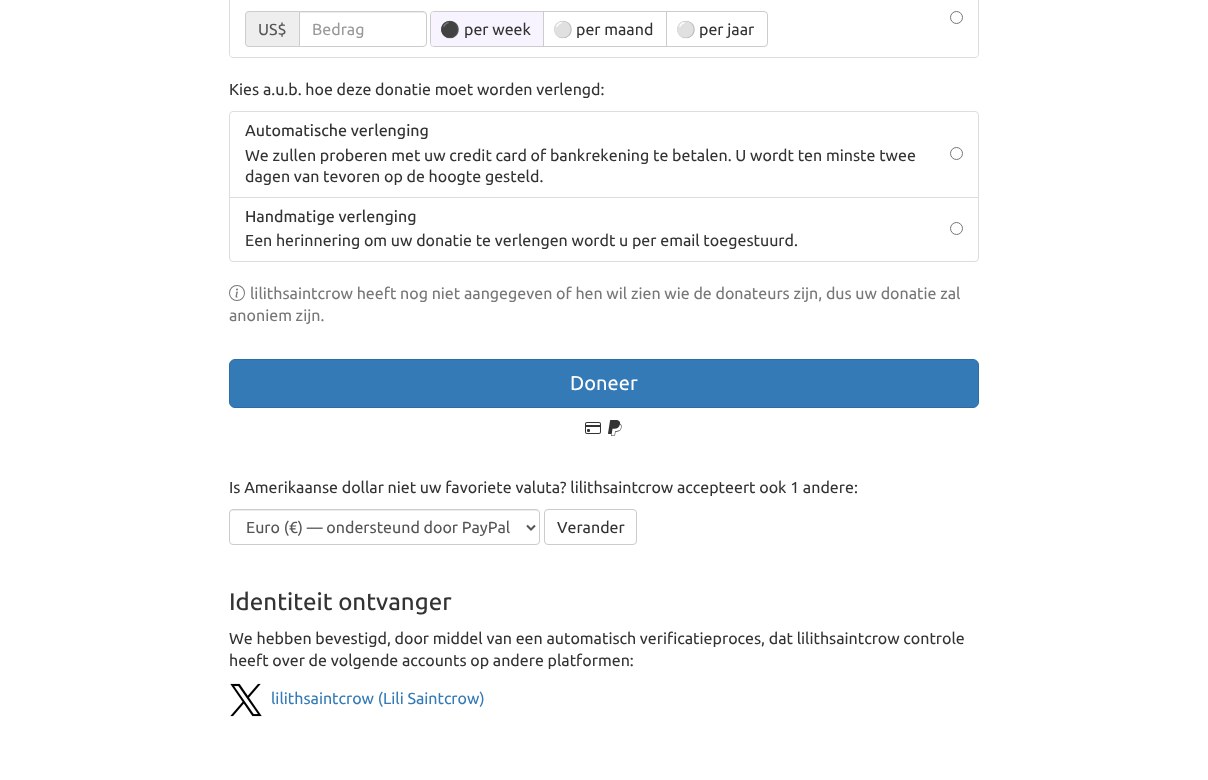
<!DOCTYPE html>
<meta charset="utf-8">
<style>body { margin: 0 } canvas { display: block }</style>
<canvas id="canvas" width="1208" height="780"></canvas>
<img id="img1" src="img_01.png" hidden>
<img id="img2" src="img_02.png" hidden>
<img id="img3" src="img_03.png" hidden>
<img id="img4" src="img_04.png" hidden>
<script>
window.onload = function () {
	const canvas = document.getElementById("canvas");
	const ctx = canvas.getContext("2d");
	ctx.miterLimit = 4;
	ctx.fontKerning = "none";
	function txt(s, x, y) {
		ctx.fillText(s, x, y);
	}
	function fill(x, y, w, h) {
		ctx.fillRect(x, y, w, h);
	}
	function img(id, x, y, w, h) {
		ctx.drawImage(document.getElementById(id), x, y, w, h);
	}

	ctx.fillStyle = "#FFFFFF";
	fill(0, 0, 1208, 780);
	ctx.beginPath();
	ctx.moveTo(229.5, -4.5);
	ctx.lineTo(978.5, -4.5);
	ctx.lineTo(978.5, 54);
	ctx.bezierCurveTo(978.5, 56, 977, 57.5, 975, 57.5);
	ctx.lineTo(233, 57.5);
	ctx.bezierCurveTo(231, 57.5, 229.5, 56, 229.5, 54);
	ctx.closePath();
	ctx.strokeStyle = "#DDDDDD";
	ctx.stroke();
	ctx.beginPath();
	ctx.arc(956.5, 17.5, 6, 0, Math.PI * 2);
	ctx.strokeStyle = "#767676";
	ctx.stroke();
	ctx.fillStyle = "#EEEEEE";
	ctx.beginPath();
	ctx.roundRect(245, 11, 54, 36, [4, 0, 0, 4]);
	ctx.fill();
	ctx.fillStyle = "#CCCCCC";
	ctx.beginPath();
	ctx.moveTo(249, 11);
	ctx.lineTo(299, 11);
	ctx.lineTo(299, 47);
	ctx.lineTo(249, 47);
	ctx.bezierCurveTo(247, 47, 245, 45, 245, 43);
	ctx.lineTo(245, 15);
	ctx.bezierCurveTo(245, 13, 247, 11, 249, 11);
	ctx.closePath();
	ctx.moveTo(249, 12);
	ctx.lineTo(299, 12);
	ctx.lineTo(299, 46);
	ctx.lineTo(249, 46);
	ctx.bezierCurveTo(247, 46, 246, 45, 246, 43);
	ctx.lineTo(246, 15);
	ctx.bezierCurveTo(246, 13, 247, 12, 249, 12);
	ctx.closePath();
	ctx.fill("evenodd");
	ctx.fillStyle = "#ECECEC";
	ctx.beginPath();
	ctx.moveTo(300, 13);
	ctx.lineTo(423, 13);
	ctx.bezierCurveTo(425, 13, 426, 14, 426, 16);
	ctx.bezierCurveTo(426, 14, 425, 12, 423, 12);
	ctx.lineTo(300, 12);
	ctx.closePath();
	ctx.fill();
	ctx.beginPath();
	ctx.roundRect(299.5, 11.5, 127, 35, [0, 3.5, 3.5, 0]);
	ctx.strokeStyle = "#CCCCCC";
	ctx.stroke();
	ctx.beginPath();
	ctx.roundRect(430.5, 11.5, 113, 35, [3.5, 0, 0, 3.5]);
	ctx.stroke();
	ctx.fillStyle = "#F8F4FF";
	ctx.beginPath();
	ctx.roundRect(431, 12, 112, 34, [3, 0, 0, 3]);
	ctx.fill();
	ctx.strokeRect(543.5, 11.5, 123, 35);
	ctx.fillStyle = "#FFFFFF";
	ctx.beginPath();
	ctx.roundRect(666.5, 11.5, 101, 35, [0, 3.5, 3.5, 0]);
	ctx.fill();
	ctx.stroke();
	ctx.beginPath();
	ctx.roundRect(229.5, 111.5, 749, 86, [3.5, 3.5, 0, 0]);
	ctx.strokeStyle = "#DDDDDD";
	ctx.stroke();
	ctx.beginPath();
	ctx.arc(956.5, 153.5, 6, 0, Math.PI * 2);
	ctx.strokeStyle = "#767676";
	ctx.stroke();
	ctx.beginPath();
	ctx.roundRect(229.5, 197.5, 749, 64, [0, 0, 3.5, 3.5]);
	ctx.fill();
	ctx.strokeStyle = "#DDDDDD";
	ctx.stroke();
	ctx.beginPath();
	ctx.arc(956.5, 228.5, 6, 0, Math.PI * 2);
	ctx.strokeStyle = "#767676";
	ctx.stroke();
	img("img1", 229, 285, 16, 16);
	ctx.fillStyle = "#337AB7";
	ctx.beginPath();
	ctx.roundRect(229.5, 359.5, 749, 48, 5.5);
	ctx.fill();
	ctx.strokeStyle = "#2E6DA4";
	ctx.stroke();
	img("img2", 585, 422, 16, 12);
	img("img3", 608, 420, 14, 16);
	ctx.fillStyle = "#ECECEC";
	ctx.beginPath();
	ctx.moveTo(233, 511);
	ctx.lineTo(536, 511);
	ctx.bezierCurveTo(538, 511, 539, 512, 539, 514);
	ctx.lineTo(538, 511);
	ctx.lineTo(537, 510);
	ctx.lineTo(233, 510);
	ctx.bezierCurveTo(231, 510, 230, 512, 230, 514);
	ctx.bezierCurveTo(230, 512, 231, 511, 233, 511);
	ctx.closePath();
	ctx.fill();
	ctx.beginPath();
	ctx.roundRect(229.5, 509.5, 310, 35, 3.5);
	ctx.strokeStyle = "#CCCCCC";
	ctx.stroke();
	ctx.beginPath();
	ctx.moveTo(527, 525.5);
	ctx.lineTo(531, 529.5);
	ctx.lineTo(535, 525.5);
	ctx.strokeStyle = "#555555";
	ctx.lineWidth = 2;
	ctx.stroke();
	ctx.beginPath();
	ctx.roundRect(544.5, 509.5, 92, 35, 3.5);
	ctx.strokeStyle = "#CCCCCC";
	ctx.lineWidth = 1;
	ctx.stroke();
	img("img4", 230, 683, 32, 34);
	ctx.font = "16px Ubuntu";
	ctx.fillStyle = "#555555";
	txt("US$", 258, 35);
	ctx.fillStyle = "#999999";
	txt("Bedrag", 312, 35);
	ctx.font = "16px Noto Color Emoji";
	ctx.fillStyle = "#C7A8FF";
	txt("⚫", 440, 35);
	ctx.font = "16px Ubuntu";
	ctx.fillStyle = "#333333";
	txt("per week", 464, 35);
	ctx.font = "16px Noto Color Emoji";
	ctx.fillStyle = "#DDDDDD";
	txt("⚪", 553, 35);
	ctx.font = "16px Ubuntu";
	ctx.fillStyle = "#333333";
	txt("per maand", 576, 35);
	ctx.font = "16px Noto Color Emoji";
	ctx.fillStyle = "#DDDDDD";
	txt("⚪", 676, 35);
	ctx.font = "16px Ubuntu";
	ctx.fillStyle = "#333333";
	txt("per jaar", 699, 35);
	txt("Kies a.u.b. hoe deze donatie moet worden verlengd:", 229, 95);
	ctx.font = "500 16px Ubuntu";
	txt("Automatische verlenging", 245, 136);
	ctx.font = "16px Ubuntu";
	txt("We zullen proberen met uw credit card of bankrekening te betalen. U wordt ten minste twee", 245, 161);
	txt("dagen van tevoren op de hoogte gesteld.", 245, 182);
	ctx.font = "500 16px Ubuntu";
	txt("Handmatige verlenging", 245, 222);
	ctx.font = "16px Ubuntu";
	txt("Een herinnering om uw donatie te verlengen wordt u per email toegestuurd.", 245, 246);
	ctx.fillStyle = "#777777";
	txt("lilithsaintcrow heeft nog niet aangegeven of hen wil zien wie de donateurs zijn, dus uw donatie zal", 250, 299);
	txt("anoniem zijn.", 229, 321);
	ctx.font = "20px Ubuntu";
	ctx.fillStyle = "#FFFFFF";
	txt("Doneer", 570, 390);
	ctx.font = "16px Ubuntu";
	ctx.fillStyle = "#333333";
	txt("Is Amerikaanse dollar niet uw favoriete valuta? lilithsaintcrow accepteert ook 1 andere:", 229, 493);
	ctx.fillStyle = "#555555";
	txt("Euro (€) — ondersteund door PayPal", 246, 533);
	ctx.fillStyle = "#333333";
	txt("Verander", 557, 533);
	ctx.font = "500 24px Ubuntu";
	txt("Identiteit ontvanger", 229, 610);
	ctx.font = "16px Ubuntu";
	txt("We hebben bevestigd, door middel van een automatisch verificatieproces, dat lilithsaintcrow controle", 229, 644);
	txt("heeft over de volgende accounts op andere platformen:", 229, 666);
	ctx.fillStyle = "#337AB7";
	txt("lilithsaintcrow (Lili Saintcrow)", 271, 704);
};
</script>
